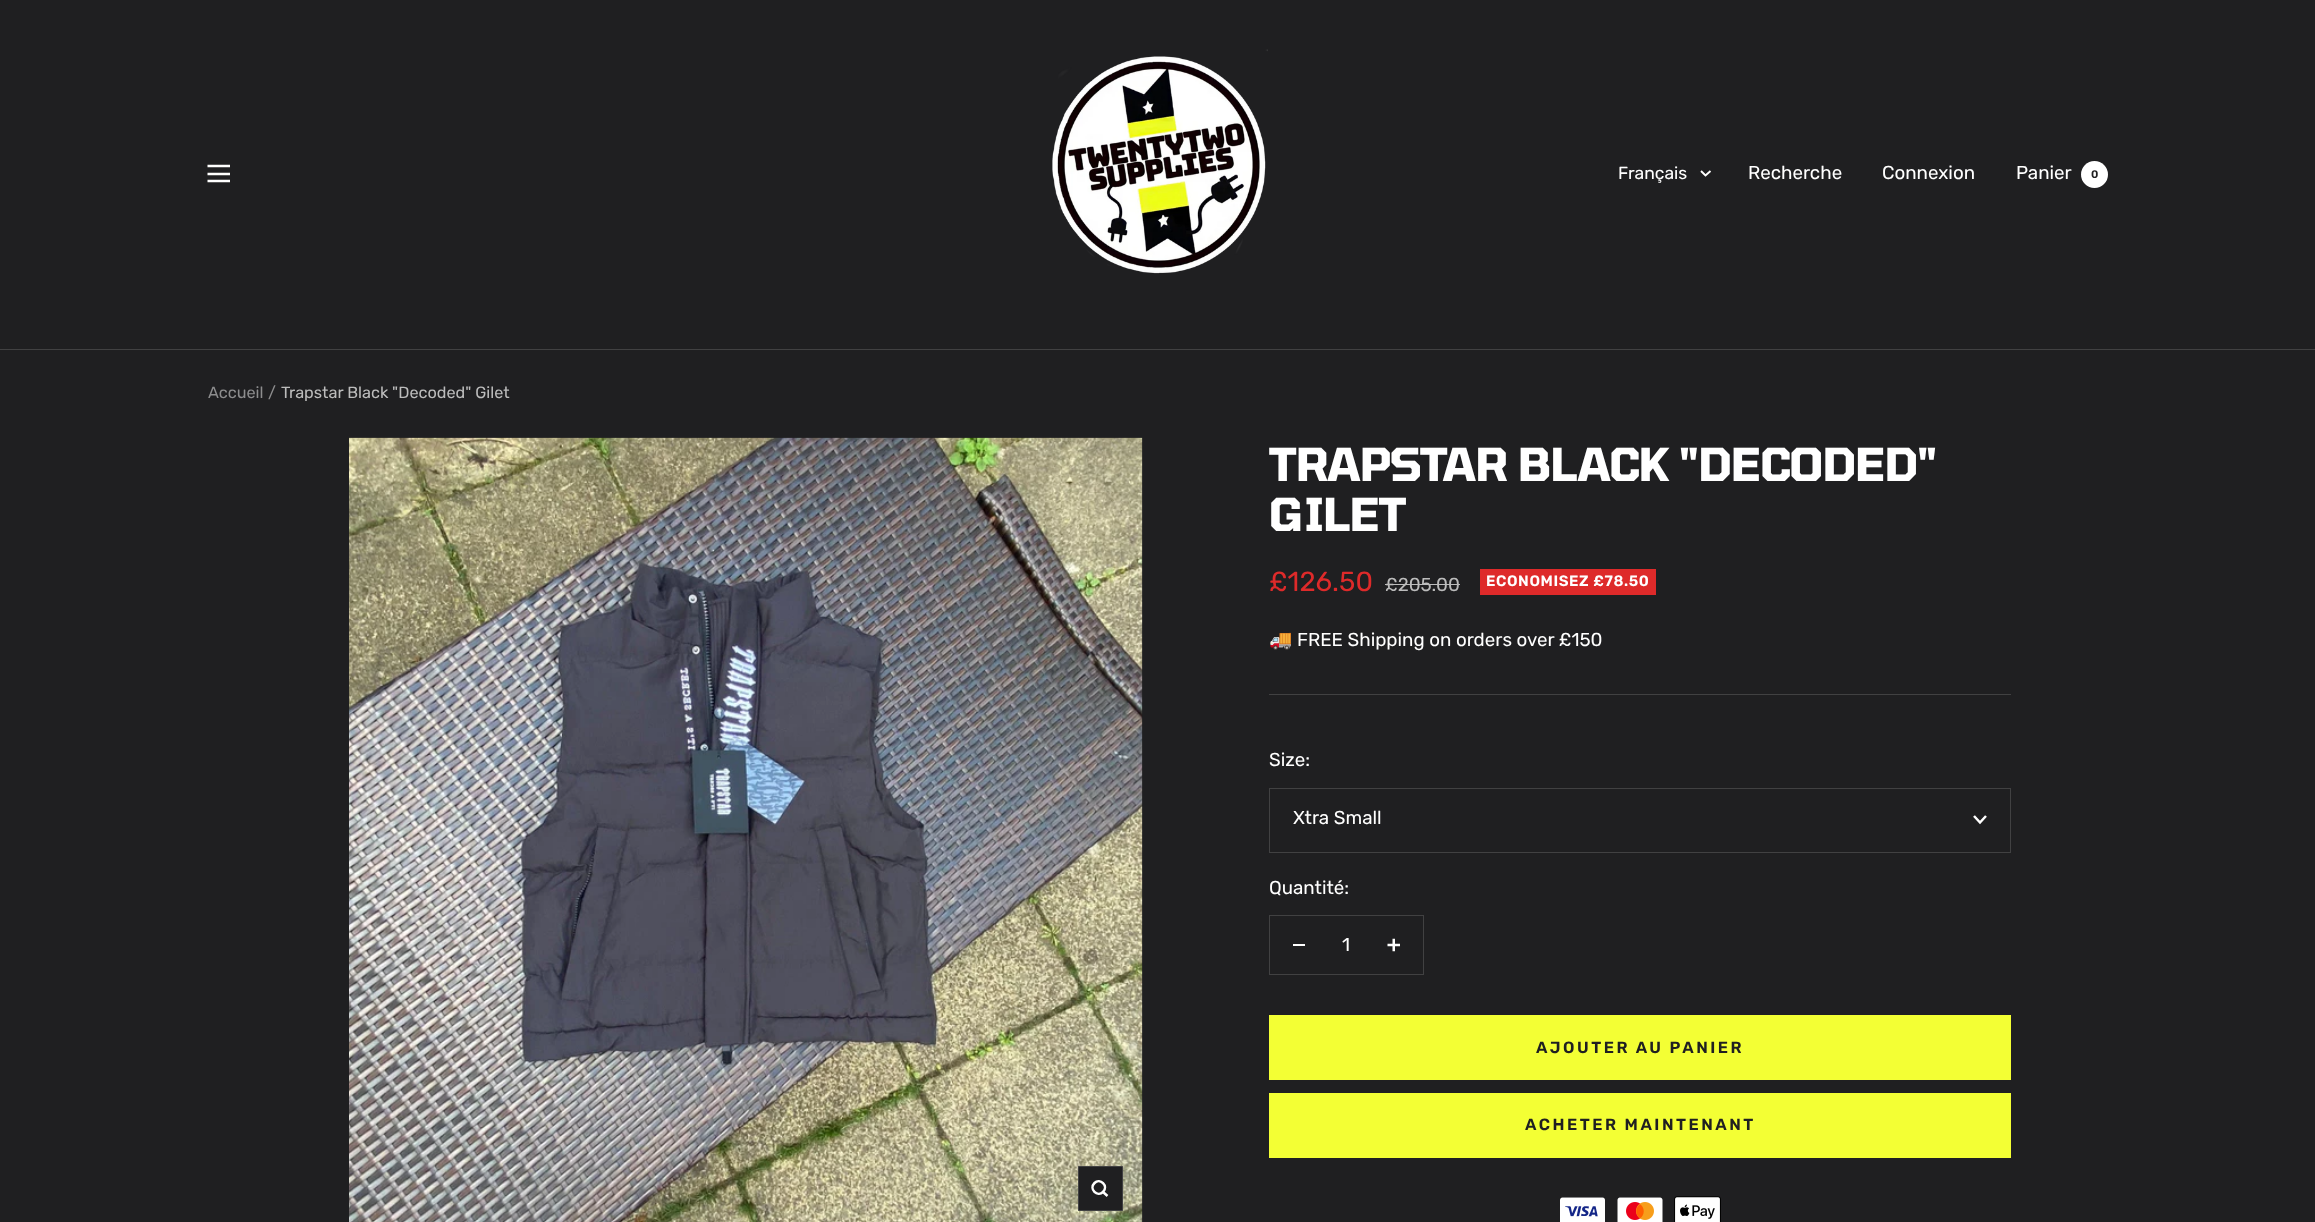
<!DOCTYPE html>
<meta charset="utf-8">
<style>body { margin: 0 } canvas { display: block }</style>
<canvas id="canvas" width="2315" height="1222"></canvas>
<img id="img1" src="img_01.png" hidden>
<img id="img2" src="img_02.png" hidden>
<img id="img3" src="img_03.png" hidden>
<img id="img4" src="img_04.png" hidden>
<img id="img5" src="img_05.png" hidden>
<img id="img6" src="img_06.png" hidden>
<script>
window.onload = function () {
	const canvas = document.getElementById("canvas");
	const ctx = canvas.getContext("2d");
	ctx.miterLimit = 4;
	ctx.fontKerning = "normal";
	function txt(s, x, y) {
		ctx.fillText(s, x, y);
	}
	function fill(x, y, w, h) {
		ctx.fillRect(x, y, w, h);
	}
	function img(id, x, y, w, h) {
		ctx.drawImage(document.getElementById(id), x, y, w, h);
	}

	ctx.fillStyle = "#1F1F21";
	fill(0, 0, 2315, 1222);
	ctx.fillStyle = "#414142";
	fill(0, 349, 2315, 1);
	ctx.beginPath();
	ctx.moveTo(207.5, 166);
	ctx.lineTo(230, 166);
	ctx.moveTo(207.5, 181);
	ctx.lineTo(230, 181);
	ctx.closePath();
	ctx.moveTo(207.5, 174);
	ctx.lineTo(230, 174);
	ctx.closePath();
	ctx.strokeStyle = "#FFFFFF";
	ctx.lineWidth = 2.5;
	ctx.stroke();
	img("img1", 1052, 49, 216, 225);
	ctx.beginPath();
	ctx.moveTo(1701, 171);
	ctx.lineTo(1705.5, 175.5);
	ctx.lineTo(1710.5, 171);
	ctx.lineWidth = 1.9;
	ctx.stroke();
	ctx.fillStyle = "#FFFFFF";
	ctx.beginPath();
	ctx.arc(2094.5, 174.5, 13.5, 0, Math.PI * 2);
	ctx.fill();
	img("img2", 349, 437, 794, 785);
	ctx.fillStyle = "#1F1F21";
	ctx.beginPath();
	ctx.rect(1078.5, 1166.5, 44, 44);
	ctx.fill();
	ctx.strokeStyle = "#414142";
	ctx.lineWidth = 1;
	ctx.stroke();
	ctx.beginPath();
	ctx.moveTo(1103, 1192);
	ctx.bezierCurveTo(1109, 1186, 1100, 1177.5, 1094.5, 1183);
	ctx.bezierCurveTo(1088.5, 1189, 1097.5, 1197.5, 1103, 1192);
	ctx.closePath();
	ctx.moveTo(1103, 1192);
	ctx.lineTo(1107.5, 1196);
	ctx.strokeStyle = "#FFFFFF";
	ctx.lineWidth = 2.5;
	ctx.stroke();
	ctx.fillStyle = "#414142";
	fill(1269, 694, 742, 1);
	ctx.fillStyle = "#BCBCBC";
	fill(1385, 584, 75, 1);
	ctx.fillStyle = "#DE2A2A";
	fill(1480, 569, 176, 26);
	ctx.strokeStyle = "#414142";
	ctx.lineWidth = 1;
	ctx.strokeRect(1269.5, 788.5, 741, 64);
	ctx.beginPath();
	ctx.moveTo(1974, 816);
	ctx.lineTo(1980, 822.5);
	ctx.lineTo(1986, 816);
	ctx.strokeStyle = "#FFFFFF";
	ctx.lineWidth = 2.5;
	ctx.stroke();
	ctx.strokeStyle = "#414142";
	ctx.lineWidth = 1;
	ctx.strokeRect(1269.5, 915.5, 154, 59);
	ctx.fillStyle = "#FFFFFF";
	fill(1293, 944, 12, 2);
	img("img3", 1387, 938, 13, 14);
	ctx.fillStyle = "#F3FF34";
	fill(1269, 1015, 742, 65);
	fill(1269, 1093, 742, 65);
	img("img4", 1560, 1197, 45, 25);
	img("img5", 1617, 1197, 46, 25);
	img("img6", 1674, 1196, 47, 26);
	ctx.font = "17.5px Rubik";
	ctx.fillStyle = "#FFFFFF";
	txt("Français", 1618, 179);
	ctx.font = "18.75px Rubik";
	txt("Recherche", 1748, 179);
	txt("Connexion", 1882, 179);
	txt("Panier", 2016, 179);
	ctx.font = "600 11px Rubik";
	ctx.fillStyle = "#1F1F21";
	txt("0", 2091, 178);
	ctx.font = "16.25px Rubik";
	ctx.fillStyle = "#8D8D8E";
	txt("Accueil", 208, 398);
	txt("/", 268, 398);
	ctx.fillStyle = "#BCBCBC";
	txt("Trapstar Black \"Decoded\" Gilet", 281, 398);
	ctx.letterSpacing = "-1px";
	ctx.font = "bold 45px Tomorrow";
	ctx.fillStyle = "#FFFFFF";
	txt("TRAPSTAR BLACK \"DECODED\"", 1269, 481);
	txt("GILET", 1269, 531);
	ctx.letterSpacing = "0px";
	ctx.font = "27.5px Rubik";
	ctx.fillStyle = "#DE2A2A";
	txt("£126.50", 1269, 591);
	ctx.font = "18.75px Rubik";
	ctx.fillStyle = "#BCBCBC";
	txt("£205.00", 1385, 591);
	ctx.letterSpacing = "0.6px";
	ctx.font = "600 15px Rubik";
	ctx.fillStyle = "#FFFFFF";
	txt("ECONOMISEZ £78.50", 1486, 586);
	ctx.letterSpacing = "0px";
	ctx.font = "18.75px Noto Color Emoji";
	txt("🚚", 1269, 646);
	ctx.font = "18.75px Rubik";
	txt("FREE Shipping on orders over £150", 1297, 646);
	txt("Size:", 1269, 766);
	txt("Xtra Small", 1293, 824);
	txt("Quantité:", 1269, 894);
	txt("1", 1342, 951);
	ctx.letterSpacing = "2.5px";
	ctx.font = "600 16.25px Rubik";
	ctx.fillStyle = "#1F1F21";
	txt("AJOUTER AU PANIER", 1536, 1053);
	txt("ACHETER MAINTENANT", 1525, 1130);
};
</script>
